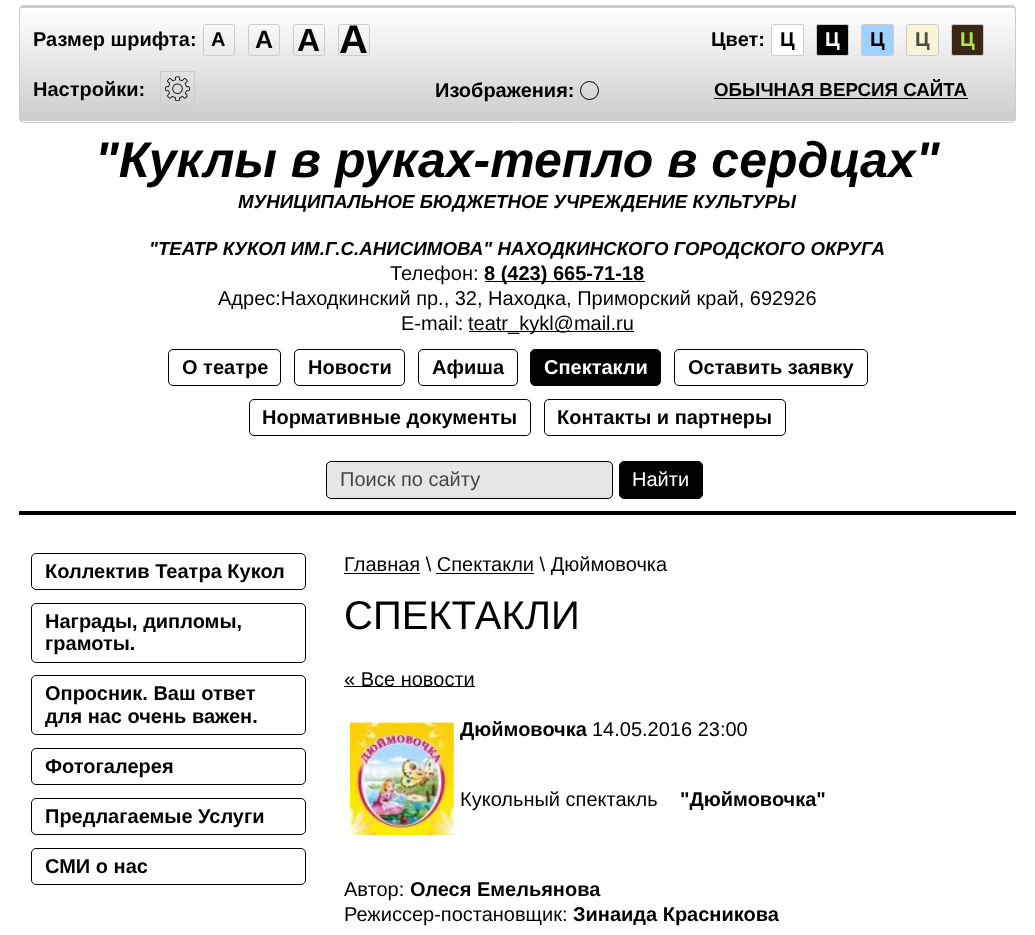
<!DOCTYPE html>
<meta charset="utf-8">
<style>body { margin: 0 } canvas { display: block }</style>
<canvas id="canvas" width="1035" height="935"></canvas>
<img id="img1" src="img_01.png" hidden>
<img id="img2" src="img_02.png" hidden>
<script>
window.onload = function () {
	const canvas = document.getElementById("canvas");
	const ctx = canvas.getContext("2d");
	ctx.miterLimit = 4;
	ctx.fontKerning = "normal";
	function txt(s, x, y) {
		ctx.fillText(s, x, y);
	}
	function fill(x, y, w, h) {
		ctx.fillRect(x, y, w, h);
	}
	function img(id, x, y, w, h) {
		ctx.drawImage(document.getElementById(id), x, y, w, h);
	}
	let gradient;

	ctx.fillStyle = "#FFFFFF";
	fill(0, 0, 1035, 935);
	ctx.fillStyle = "#000000";
	fill(19, 511, 997, 4);
	ctx.fillStyle = "#CCCCCC";
	ctx.beginPath();
	ctx.moveTo(24, 5);
	ctx.bezierCurveTo(21, 5, 19, 7, 19, 10);
	ctx.bezierCurveTo(20, 8, 22, 6, 24, 6);
	ctx.lineTo(1011, 6);
	ctx.bezierCurveTo(1013, 6, 1015, 8, 1016, 10);
	ctx.bezierCurveTo(1016, 7, 1014, 5, 1011, 5);
	ctx.closePath();
	ctx.fill();
	ctx.save();
	ctx.beginPath();
	ctx.roundRect(19, 6, 997, 117, 5);
	ctx.clip();
	gradient = ctx.createLinearGradient(518, -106, 518, 7.5);
	gradient.addColorStop(0, "#FFFFFF");
	gradient.addColorStop(1, "#CCCCCC");
	ctx.fillStyle = gradient;
	fill(19, 6, 997, 2);
	gradient = ctx.createLinearGradient(518, 7.5, 518, 121);
	gradient.addColorStop(0, "#FFFFFF");
	gradient.addColorStop(1, "#CCCCCC");
	ctx.fillStyle = gradient;
	fill(19, 8, 997, 113);
	ctx.restore();
	ctx.beginPath();
	ctx.roundRect(19.5, 6.5, 996, 116, 4.5);
	ctx.strokeStyle = "#CCCCCC";
	ctx.stroke();
	ctx.beginPath();
	ctx.roundRect(203.5, 24.5, 31, 31, 2);
	ctx.stroke();
	ctx.beginPath();
	ctx.roundRect(248.5, 24.5, 31, 31, 2);
	ctx.stroke();
	ctx.beginPath();
	ctx.roundRect(293.5, 24.5, 31, 31, 2);
	ctx.stroke();
	ctx.beginPath();
	ctx.roundRect(338.5, 24.5, 31, 31, 2);
	ctx.stroke();
	ctx.fillStyle = "#FFFFFF";
	ctx.beginPath();
	ctx.roundRect(771.5, 24.5, 32, 31, 2);
	ctx.fill();
	ctx.stroke();
	ctx.fillStyle = "#000000";
	ctx.beginPath();
	ctx.roundRect(816.5, 24.5, 32, 31, 2);
	ctx.fill();
	ctx.stroke();
	ctx.fillStyle = "#9DD1FF";
	ctx.beginPath();
	ctx.roundRect(861.5, 24.5, 32, 31, 2);
	ctx.fill();
	ctx.stroke();
	ctx.fillStyle = "#F7F3D6";
	ctx.beginPath();
	ctx.roundRect(906.5, 24.5, 32, 31, 2);
	ctx.fill();
	ctx.stroke();
	ctx.fillStyle = "#3B2716";
	ctx.beginPath();
	ctx.roundRect(951.5, 24.5, 32, 31, 2);
	ctx.fill();
	ctx.stroke();
	ctx.strokeRect(160.5, 71.5, 34, 34);
	img("img1", 165, 76, 25, 26);
	ctx.beginPath();
	ctx.arc(589.5, 90.5, 9, 0, Math.PI * 2);
	ctx.strokeStyle = "#000000";
	ctx.stroke();
	ctx.fillStyle = "#000000";
	fill(714, 98, 254, 1);
	fill(485, 281, 160, 1);
	fill(469, 331, 165, 1);
	ctx.beginPath();
	ctx.roundRect(168.5, 349.5, 112, 36, 4.5);
	ctx.stroke();
	ctx.beginPath();
	ctx.roundRect(294.5, 349.5, 110, 36, 4.5);
	ctx.stroke();
	ctx.beginPath();
	ctx.roundRect(418.5, 349.5, 99, 36, 4.5);
	ctx.stroke();
	ctx.beginPath();
	ctx.roundRect(530.5, 349.5, 130, 36, 4.5);
	ctx.fill();
	ctx.stroke();
	ctx.beginPath();
	ctx.roundRect(674.5, 349.5, 193, 36, 4.5);
	ctx.stroke();
	ctx.beginPath();
	ctx.roundRect(249.5, 399.5, 281, 36, 4.5);
	ctx.stroke();
	ctx.beginPath();
	ctx.roundRect(544.5, 399.5, 241, 36, 4.5);
	ctx.stroke();
	ctx.fillStyle = "#E6E6E6";
	ctx.beginPath();
	ctx.roundRect(326.5, 461.5, 286, 37, 4.5);
	ctx.fill();
	ctx.stroke();
	ctx.fillStyle = "#000000";
	ctx.beginPath();
	ctx.roundRect(619.5, 461.5, 83, 37, 4.5);
	ctx.fill();
	ctx.stroke();
	ctx.beginPath();
	ctx.roundRect(31.5, 553.5, 274, 36, 4.5);
	ctx.stroke();
	ctx.beginPath();
	ctx.roundRect(31.5, 603.5, 274, 59, 4.5);
	ctx.stroke();
	ctx.beginPath();
	ctx.roundRect(31.5, 675.5, 274, 59, 4.5);
	ctx.stroke();
	ctx.beginPath();
	ctx.roundRect(31.5, 748.5, 274, 36, 4.5);
	ctx.stroke();
	ctx.beginPath();
	ctx.roundRect(31.5, 798.5, 274, 36, 4.5);
	ctx.stroke();
	ctx.beginPath();
	ctx.roundRect(31.5, 848.5, 274, 36, 4.5);
	ctx.stroke();
	fill(344, 573, 76, 1);
	fill(436, 573, 98, 1);
	fill(344, 686, 131, 1);
	img("img2", 350, 722, 104, 113);
	ctx.font = "bold 20px Liberation Sans";
	txt("Размер шрифта:", 33, 46);
	txt("A", 211, 46);
	ctx.font = "bold 25px Liberation Sans";
	txt("A", 255, 48);
	ctx.font = "bold 32px Liberation Sans";
	txt("A", 297, 51);
	ctx.font = "bold 40px Liberation Sans";
	txt("A", 339, 53);
	ctx.font = "bold 20px Liberation Sans";
	txt("Цвет:", 711, 46);
	txt("Ц", 780, 46);
	ctx.fillStyle = "#FFFFFF";
	txt("Ц", 825, 46);
	ctx.fillStyle = "#000000";
	txt("Ц", 870, 46);
	ctx.fillStyle = "#4D4B43";
	txt("Ц", 915, 46);
	ctx.fillStyle = "#A9E44D";
	txt("Ц", 960, 46);
	ctx.fillStyle = "#000000";
	txt("Настройки:", 33, 96);
	txt("Изображения:", 435, 97);
	ctx.font = "bold 18.75px Liberation Sans";
	txt("ОБЫЧНАЯ ВЕРСИЯ САЙТА", 714, 96);
	ctx.font = "italic bold 50px Liberation Sans";
	txt("\"Куклы в руках-тепло в сердцах\"", 95, 177);
	ctx.font = "italic bold 18.75px Liberation Sans";
	txt("МУНИЦИПАЛЬНОЕ БЮДЖЕТНОЕ УЧРЕЖДЕНИЕ КУЛЬТУРЫ", 238, 208);
	txt("\"ТЕАТР КУКОЛ ИМ.Г.С.АНИСИМОВА\" НАХОДКИНСКОГО ГОРОДСКОГО ОКРУГА", 149, 255);
	ctx.font = "20px Liberation Sans";
	txt("Телефон:", 390, 280);
	ctx.font = "bold 20px Liberation Sans";
	txt("8 (423) 665-71-18", 484, 280);
	ctx.font = "20px Liberation Sans";
	txt("Адрес:Находкинский пр., 32, Находка, Приморский край, 692926", 218, 305);
	txt("E-mail:", 401, 330);
	txt("teatr_kykl@mail.ru", 468, 330);
	ctx.font = "bold 20px Liberation Sans";
	txt("О театре", 182, 374);
	txt("Новости", 308, 374);
	txt("Афиша", 432, 374);
	ctx.fillStyle = "#FFFFFF";
	txt("Спектакли", 544, 374);
	ctx.fillStyle = "#000000";
	txt("Оставить заявку", 688, 374);
	txt("Нормативные документы", 262, 424);
	txt("Контакты и партнеры", 557, 424);
	ctx.font = "20px Liberation Sans";
	ctx.fillStyle = "#454545";
	txt("Поиск по сайту", 340, 486);
	ctx.fillStyle = "#FFFFFF";
	txt("Найти", 632, 486);
	ctx.font = "bold 20px Liberation Sans";
	ctx.fillStyle = "#000000";
	txt("Коллектив Театра Кукол", 45, 578);
	txt("Награды, дипломы,", 45, 628);
	txt("грамоты.", 45, 650);
	txt("Опросник. Ваш ответ", 45, 700);
	txt("для нас очень важен.", 45, 723);
	txt("Фотогалерея", 45, 773);
	txt("Предлагаемые Услуги", 45, 823);
	txt("СМИ о нас", 45, 873);
	ctx.font = "20px Liberation Sans";
	txt("Главная \\ Спектакли \\ Дюймовочка", 344, 571);
	ctx.font = "40px Liberation Sans";
	txt("СПЕКТАКЛИ", 344, 629);
	ctx.font = "20px Liberation Sans";
	txt("« Все новости", 344, 686);
	ctx.font = "bold 20px Liberation Sans";
	txt("Дюймовочка", 460, 736);
	ctx.font = "20px Liberation Sans";
	txt("14.05.2016 23:00", 592, 736);
	txt("Кукольный спектакль", 460, 806);
	ctx.font = "bold 20px Liberation Sans";
	txt("\"Дюймовочка\"", 680, 806);
	ctx.font = "20px Liberation Sans";
	txt("Автор:", 344, 896);
	ctx.font = "bold 20px Liberation Sans";
	txt("Олеся Емельянова", 410, 896);
	ctx.font = "20px Liberation Sans";
	txt("Режиссер-постановщик:", 344, 921);
	ctx.font = "bold 20px Liberation Sans";
	txt("Зинаида Красникова", 573, 921);
};
</script>
